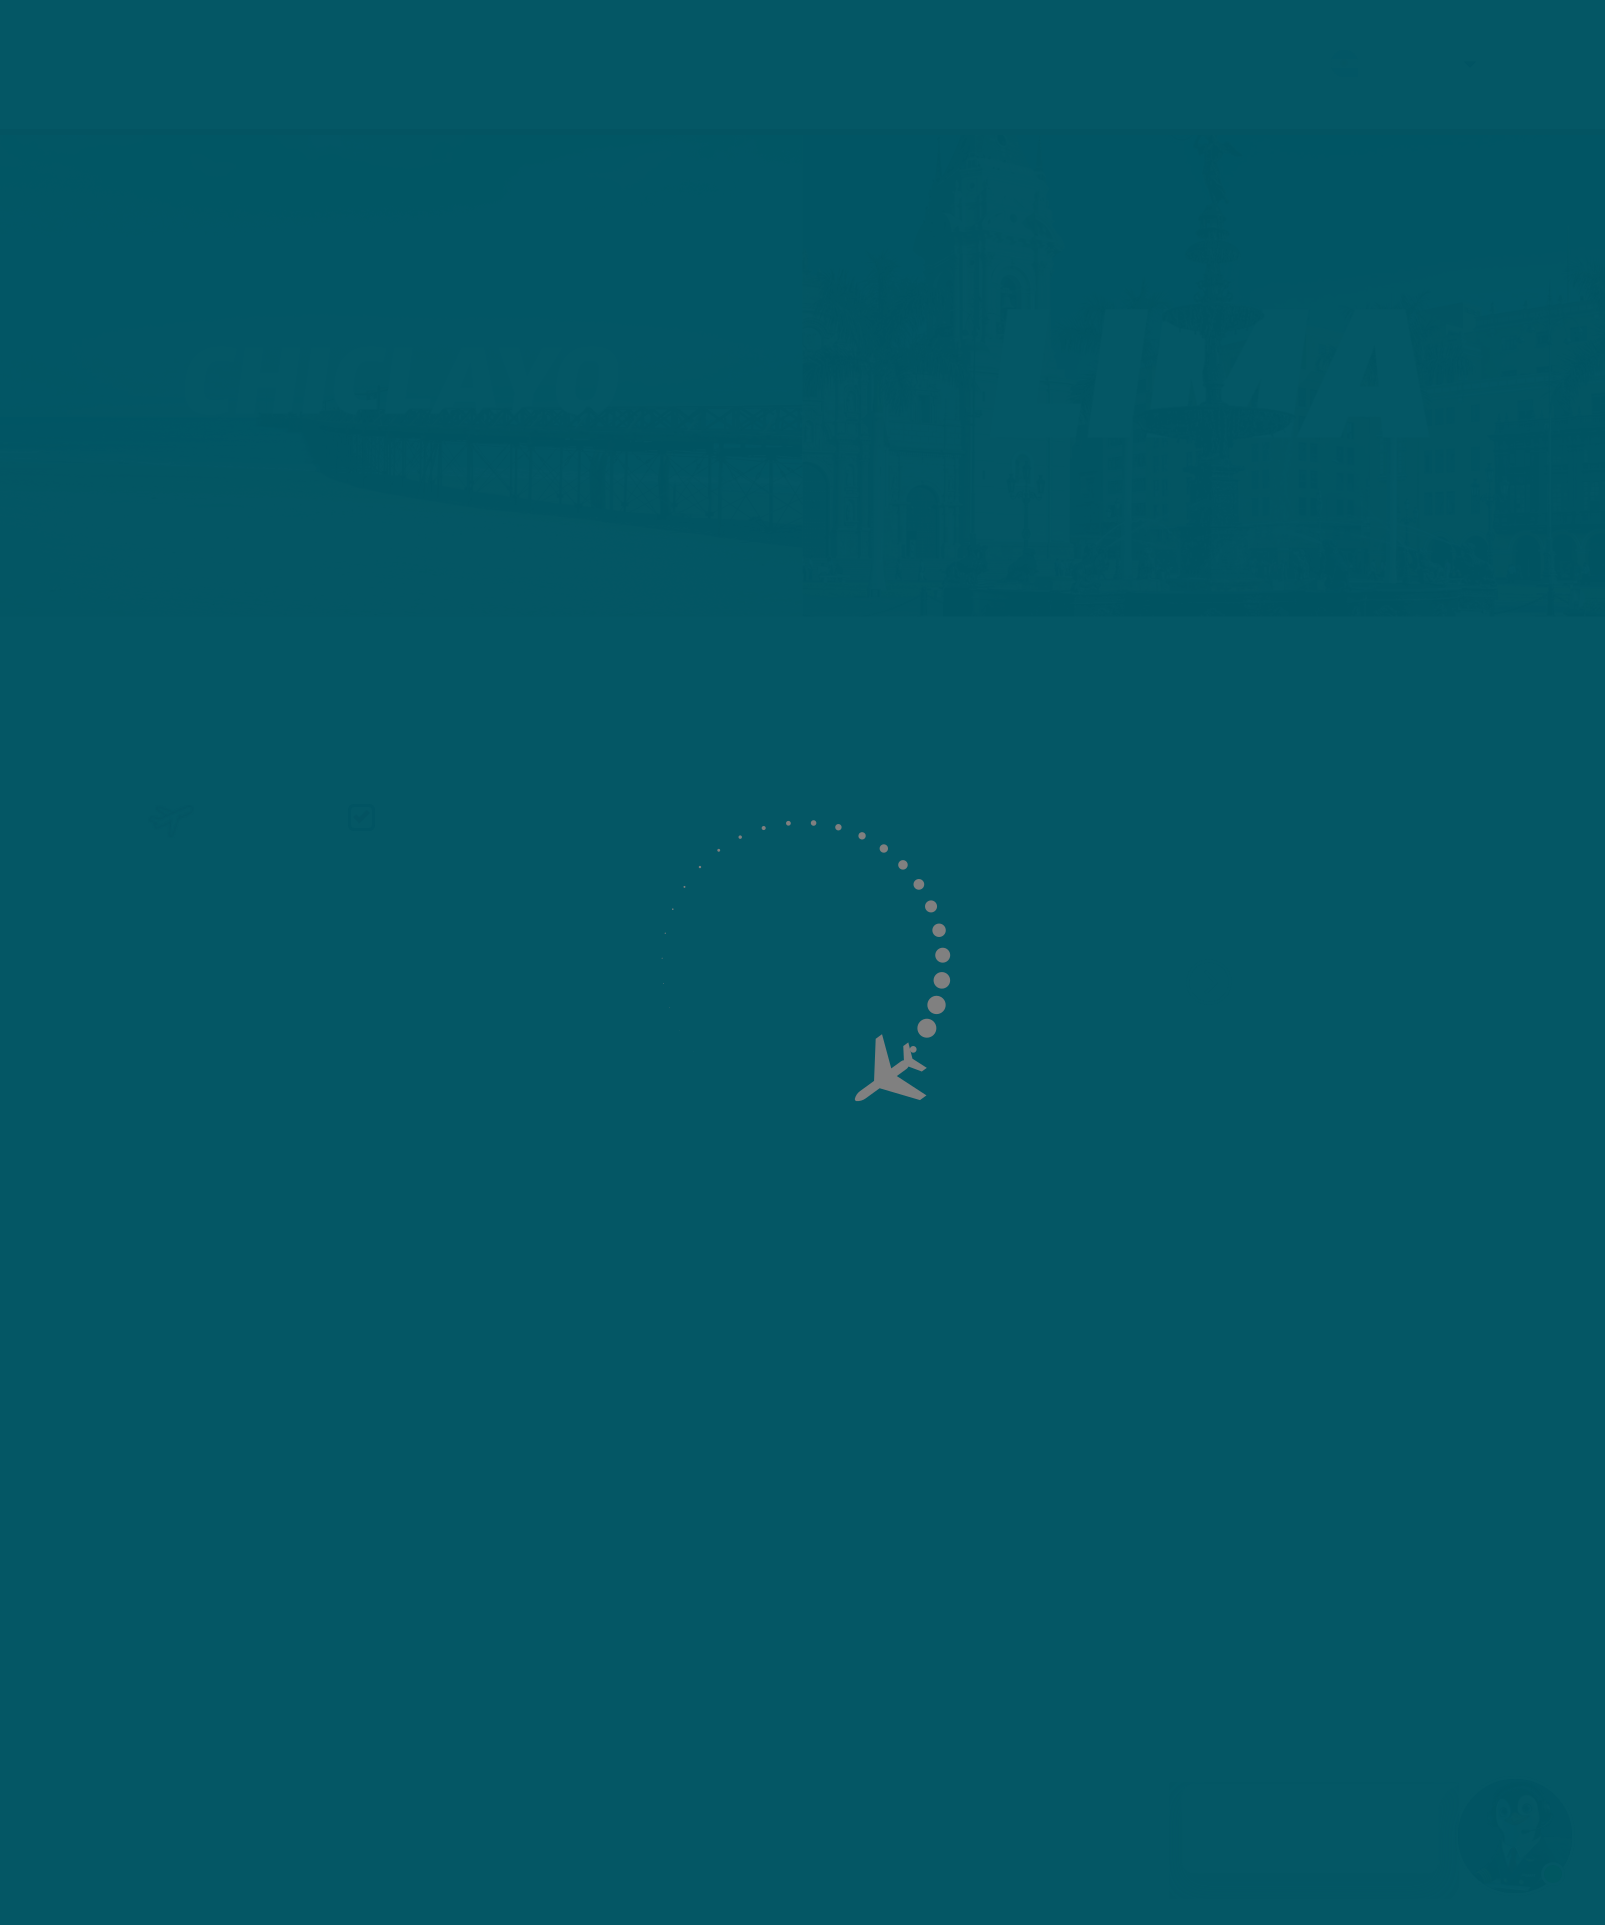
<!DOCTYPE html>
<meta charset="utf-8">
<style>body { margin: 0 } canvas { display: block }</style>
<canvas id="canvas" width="1605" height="1925"></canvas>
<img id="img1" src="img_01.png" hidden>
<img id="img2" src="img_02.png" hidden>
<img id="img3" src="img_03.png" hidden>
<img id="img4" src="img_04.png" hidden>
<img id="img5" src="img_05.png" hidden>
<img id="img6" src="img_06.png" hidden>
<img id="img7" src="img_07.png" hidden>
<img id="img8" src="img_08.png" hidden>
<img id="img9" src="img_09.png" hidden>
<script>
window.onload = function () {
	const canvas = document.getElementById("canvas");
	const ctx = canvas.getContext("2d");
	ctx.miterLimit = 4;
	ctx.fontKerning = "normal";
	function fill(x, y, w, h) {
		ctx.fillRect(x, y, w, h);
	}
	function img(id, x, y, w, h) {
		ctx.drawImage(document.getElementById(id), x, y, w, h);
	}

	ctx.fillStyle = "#045765";
	fill(0, 0, 1605, 1925);
	ctx.fillStyle = "#035462";
	fill(0, 129, 1605, 6);
	img("img1", 1331, 50, 27, 27);
	ctx.fillStyle = "#015463";
	ctx.beginPath();
	ctx.moveTo(1464, 61.5);
	ctx.lineTo(1476, 61.5);
	ctx.lineTo(1470, 67.5);
	ctx.closePath();
	ctx.fill();
	img("img2", 0, 135, 803, 482);
	img("img3", 802, 135, 803, 482);
	img("img4", 148, 805, 46, 33);
	ctx.beginPath();
	ctx.roundRect(349.5, 805.5, 24, 24, 4.5);
	ctx.strokeStyle = "#015463";
	ctx.lineWidth = 3;
	ctx.stroke();
	img("img5", 353, 810, 17, 14);
	img("img6", 1186, 959, 46, 46);
	img("img7", 661, 820, 290, 282);
	ctx.beginPath();
	ctx.arc(1515, 1836, 58.5, 0, Math.PI * 2);
	ctx.fill();
	ctx.strokeStyle = "#045765";
	ctx.stroke();
	img("img8", 1169, 1782, 290, 117);
	img("img9", 1472, 1782, 100, 111);
	ctx.fillStyle = "#005761";
	ctx.beginPath();
	ctx.arc(1553, 1874, 10.5, 0, Math.PI * 2);
	ctx.fill();
	ctx.stroke();
};
</script>
